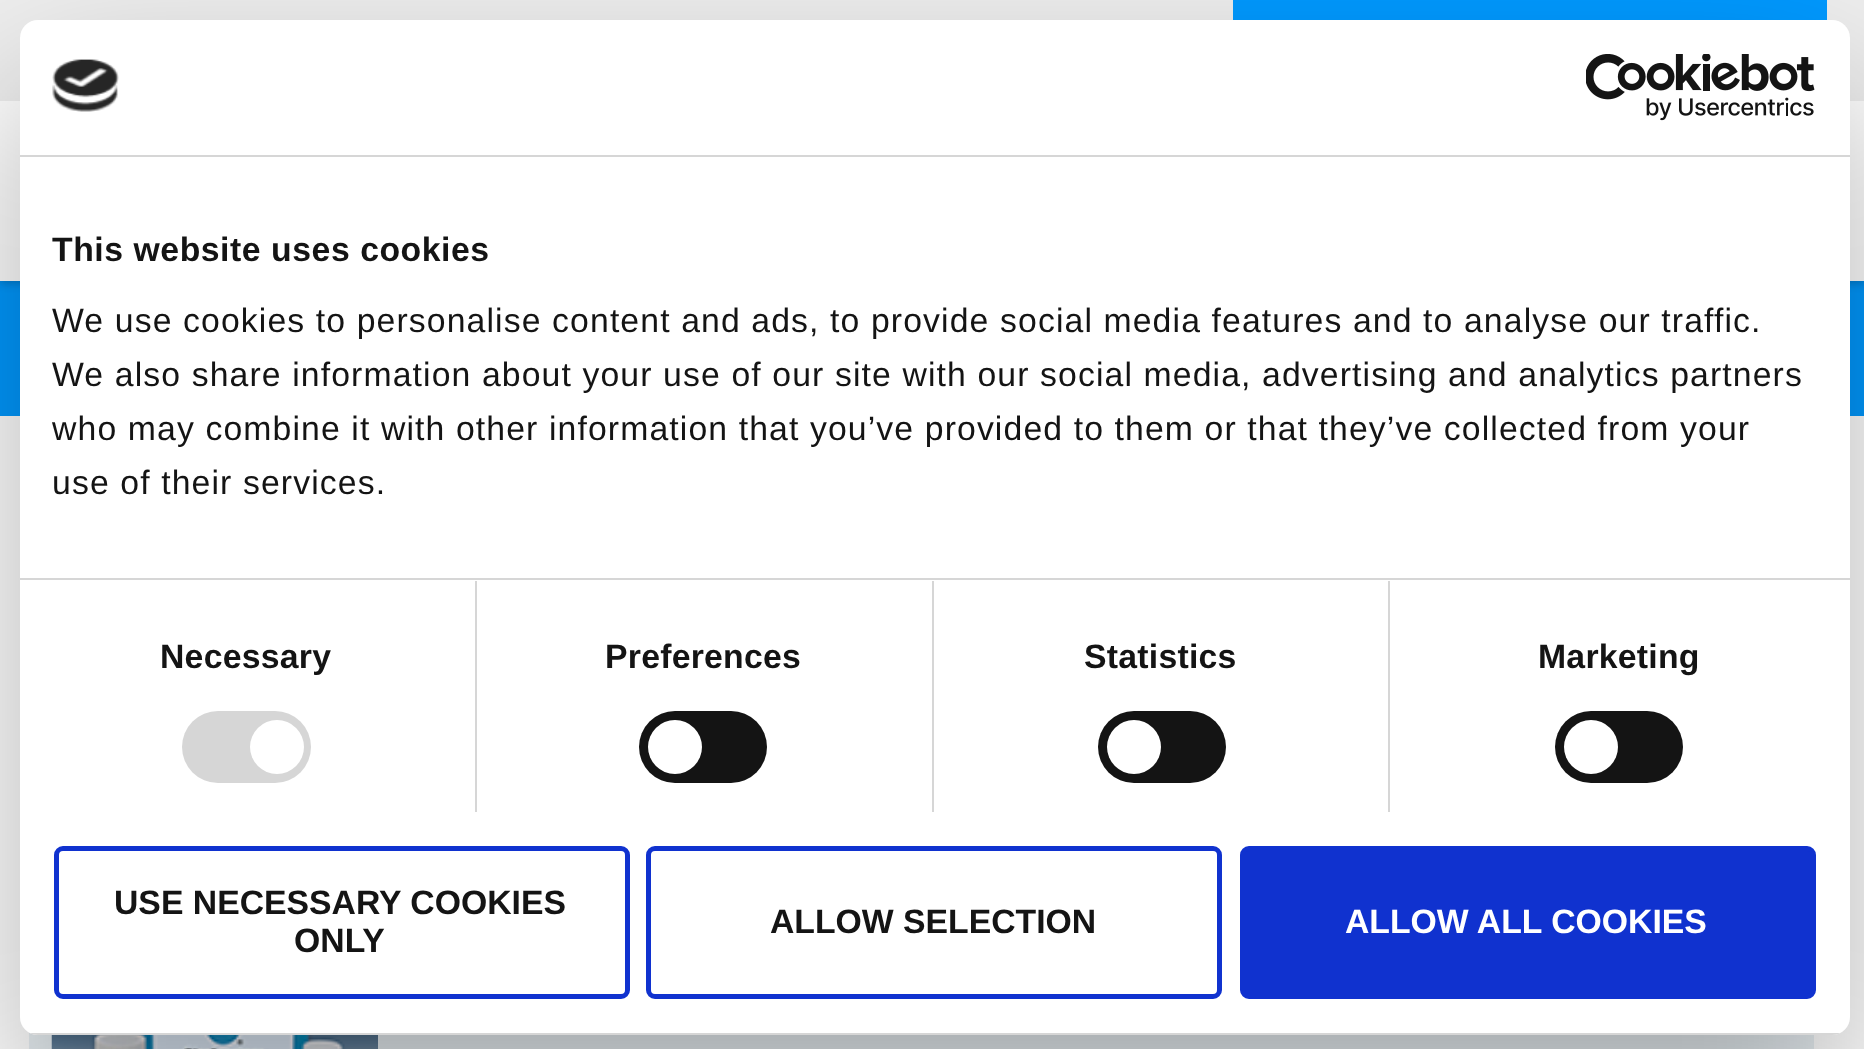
<!DOCTYPE html>
<meta charset="utf-8">
<style>body { margin: 0 } canvas { display: block }</style>
<canvas id="canvas" width="1864" height="1049"></canvas>
<img id="img1" src="img_01.png" hidden>
<img id="img2" src="img_02.png" hidden>
<img id="img3" src="img_03.png" hidden>
<script>
window.onload = function () {
	const canvas = document.getElementById("canvas");
	const ctx = canvas.getContext("2d");
	ctx.miterLimit = 4;
	ctx.fontKerning = "normal";
	function txt(s, x, y) {
		ctx.fillText(s, x, y);
	}
	function fill(x, y, w, h) {
		ctx.fillRect(x, y, w, h);
	}
	function round(x, y, w, h, r) {
		ctx.beginPath();
		ctx.roundRect(x, y, w, h, r);
		ctx.fill();
	}
	function img(id, x, y, w, h) {
		ctx.drawImage(document.getElementById(id), x, y, w, h);
	}

	ctx.fillStyle = "#FFFFFF";
	fill(0, 0, 1864, 1049);
	ctx.fillStyle = "#0099FF";
	fill(0, 281, 1864, 135);
	ctx.fillStyle = "rgba(0, 0, 0, 0.2)";
	ctx.filter = "blur(4.5px)";
	ctx.beginPath();
	ctx.rect(0, 104, 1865, 180);
	ctx.fill();
	ctx.filter = "none";
	ctx.fillStyle = "#EEEEEE";
	fill(0, 0, 1864, 101);
	ctx.fillStyle = "#0099FF";
	fill(1233, 0, 594, 20);
	ctx.fillStyle = "#FFFFFF";
	fill(0, 101, 1864, 180);
	ctx.fillStyle = "#EAF1F5";
	fill(29, 1032, 1785, 17);
	img("img1", 51, 1035, 327, 14);
	ctx.fillStyle = "rgba(0, 0, 0, 0.3)";
	ctx.filter = "blur(76.5px)";
	ctx.beginPath();
	ctx.roundRect(20, 92, 1830, 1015, 18);
	ctx.fill();
	ctx.filter = "none";
	ctx.fillStyle = "#FFFFFF";
	round(20, 20, 1830, 1015, 18);
	ctx.fillStyle = "#D6D6D6";
	fill(20, 155, 1830, 2);
	img("img2", 52, 59, 67, 53);
	img("img3", 1586, 54, 229, 67);
	fill(20, 578, 1830, 2);
	fill(475, 581, 2, 231);
	round(182, 711, 129, 72, 36);
	ctx.fillStyle = "#FFFFFF";
	ctx.beginPath();
	ctx.arc(277, 747, 27, 0, Math.PI * 2);
	ctx.fill();
	ctx.fillStyle = "#D6D6D6";
	fill(932, 581, 2, 231);
	ctx.fillStyle = "#141414";
	round(639, 711, 128, 72, 36);
	ctx.fillStyle = "#FFFFFF";
	ctx.beginPath();
	ctx.arc(675, 747, 27, 0, Math.PI * 2);
	ctx.fill();
	ctx.fillStyle = "#D6D6D6";
	fill(1388, 581, 2, 231);
	ctx.fillStyle = "#141414";
	round(1098, 711, 128, 72, 36);
	ctx.fillStyle = "#FFFFFF";
	ctx.beginPath();
	ctx.arc(1134, 747, 27, 0, Math.PI * 2);
	ctx.fill();
	ctx.fillStyle = "#141414";
	round(1555, 711, 128, 72, 36);
	ctx.fillStyle = "#FFFFFF";
	ctx.beginPath();
	ctx.arc(1591, 747, 27, 0, Math.PI * 2);
	ctx.fill();
	ctx.save();
	ctx.beginPath();
	ctx.roundRect(20, 20, 1830, 1015, 18);
	ctx.clip();
	ctx.fillStyle = "#D6D6D6";
	fill(30, 1033, 1810, 2);
	ctx.restore();
	ctx.beginPath();
	ctx.roundRect(56.5, 848.5, 571, 148, 6.5);
	ctx.strokeStyle = "#1032CF";
	ctx.lineWidth = 5;
	ctx.stroke();
	ctx.beginPath();
	ctx.roundRect(648.5, 848.5, 571, 148, 6.5);
	ctx.stroke();
	ctx.fillStyle = "#1032CF";
	ctx.beginPath();
	ctx.roundRect(1242.5, 848.5, 571, 148, 6.5);
	ctx.fill();
	ctx.stroke();
	ctx.letterSpacing = "0.55px";
	ctx.font = "bold 33.75px Liberation Sans";
	ctx.fillStyle = "#141414";
	txt("This website uses cookies", 52, 261);
	ctx.letterSpacing = "1.12px";
	ctx.font = "33.75px Liberation Sans";
	txt("We use cookies to personalise content and ads, to provide social media features and to analyse our traffic.", 52, 332);
	txt("We also share information about your use of our site with our social media, advertising and analytics partners", 52, 386);
	txt("who may combine it with other information that you’ve provided to them or that they’ve collected from your", 52, 440);
	txt("use of their services.", 52, 494);
	ctx.letterSpacing = "0.25px";
	ctx.font = "bold 33.75px Liberation Sans";
	txt("Necessary", 160, 668);
	txt("Preferences", 605, 668);
	txt("Statistics", 1084, 668);
	txt("Marketing", 1538, 668);
	ctx.letterSpacing = "0px";
	txt("USE NECESSARY COOKIES", 114, 914);
	txt("ONLY", 294, 952);
	txt("ALLOW SELECTION", 770, 933);
	ctx.fillStyle = "#FFFFFF";
	txt("ALLOW ALL COOKIES", 1345, 933);
};
</script>
